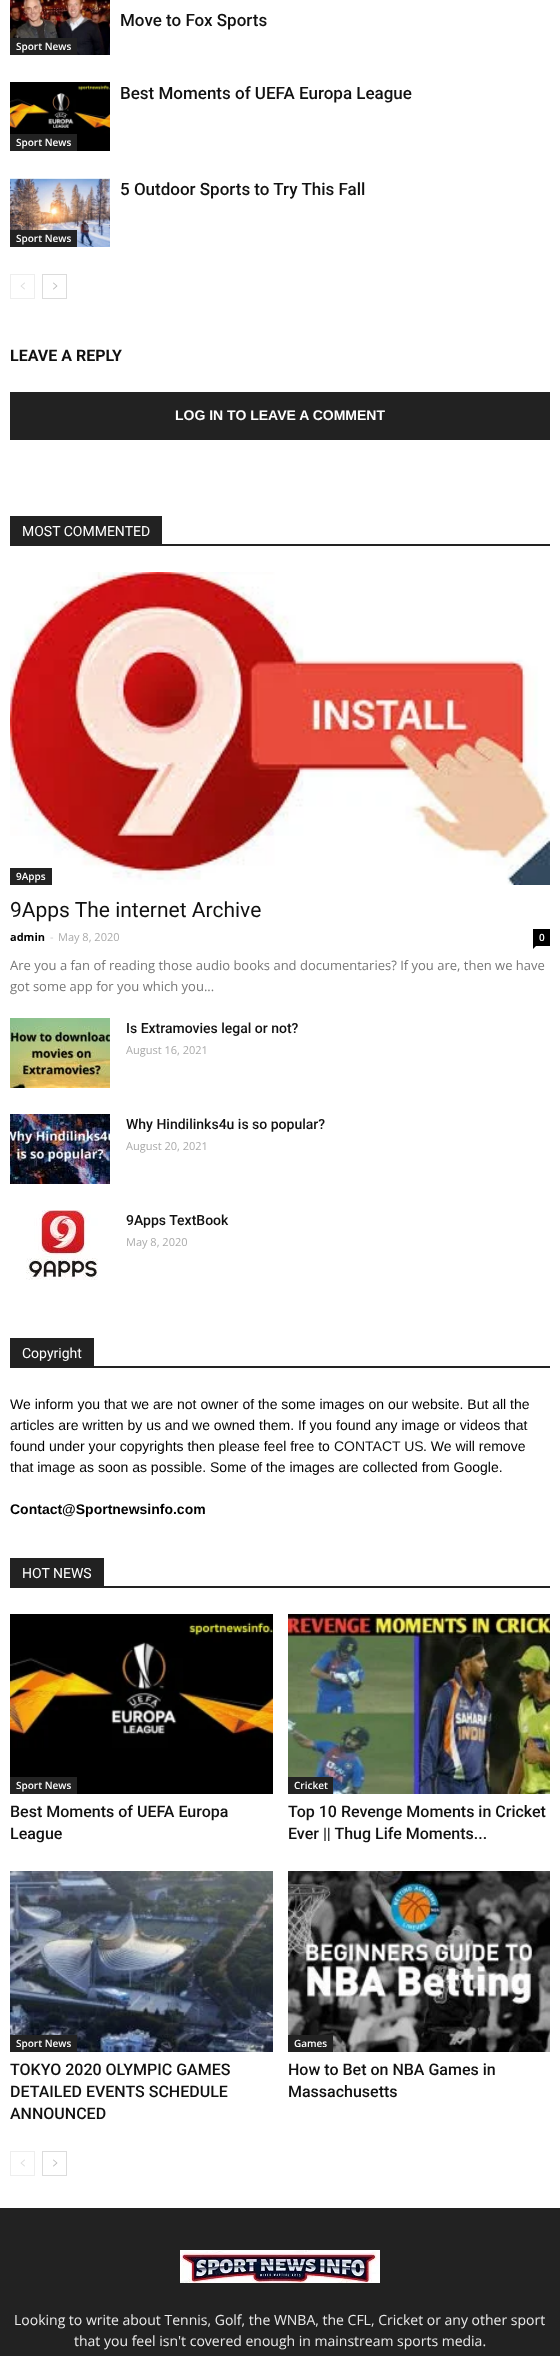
<!DOCTYPE html>
<meta charset="utf-8">
<style>body { margin: 0 } canvas { display: block }</style>
<canvas id="canvas" width="560" height="2356"></canvas>
<img id="img1" src="img_01.png" hidden>
<img id="img2" src="img_02.png" hidden>
<img id="img3" src="img_03.png" hidden>
<img id="img4" src="img_04.png" hidden>
<img id="img5" src="img_05.png" hidden>
<img id="img6" src="img_06.png" hidden>
<img id="img7" src="img_07.png" hidden>
<img id="img8" src="img_08.png" hidden>
<img id="img9" src="img_09.png" hidden>
<img id="img10" src="img_10.png" hidden>
<img id="img11" src="img_11.png" hidden>
<img id="img12" src="img_12.png" hidden>
<img id="img13" src="img_13.png" hidden>
<img id="img14" src="img_14.png" hidden>
<script>
window.onload = function () {
	const canvas = document.getElementById("canvas");
	const ctx = canvas.getContext("2d");
	ctx.miterLimit = 4;
	ctx.fontKerning = "normal";
	function txt(s, x, y) {
		ctx.fillText(s, x, y);
	}
	function fill(x, y, w, h) {
		ctx.fillRect(x, y, w, h);
	}
	function img(id, x, y, w, h) {
		ctx.drawImage(document.getElementById(id), x, y, w, h);
	}

	ctx.fillStyle = "#FFFFFF";
	fill(0, 0, 560, 2356);
	img("img1", 10, 0, 100, 55);
	ctx.fillStyle = "#222222";
	fill(10, 38, 67, 17);
	img("img2", 10, 82, 100, 69);
	fill(10, 134, 67, 17);
	img("img3", 10, 178, 100, 69);
	fill(10, 230, 67, 17);
	ctx.strokeStyle = "#EEEEEE";
	ctx.strokeRect(10.5, 274.5, 24, 24);
	img("img4", 20, 282, 5, 8);
	ctx.strokeStyle = "#DCDCDC";
	ctx.strokeRect(42.5, 274.5, 24, 24);
	img("img5", 53, 282, 5, 8);
	fill(10, 392, 540, 48);
	fill(10, 544, 540, 2);
	fill(10, 516, 152, 28);
	img("img6", 10, 572, 540, 313);
	fill(10, 868, 42, 17);
	ctx.fillStyle = "#000000";
	fill(533, 929, 17, 17);
	ctx.beginPath();
	ctx.moveTo(533, 946);
	ctx.lineTo(536, 946);
	ctx.lineTo(533, 949);
	ctx.closePath();
	ctx.fill();
	img("img7", 10, 1018, 100, 70);
	img("img8", 10, 1114, 100, 70);
	img("img9", 26, 1210, 72, 70);
	ctx.fillStyle = "#222222";
	fill(10, 1366, 540, 2);
	fill(10, 1338, 84, 28);
	fill(10, 1586, 540, 2);
	fill(10, 1558, 94, 28);
	img("img10", 10, 1614, 263, 180);
	fill(10, 1777, 67, 17);
	img("img11", 288, 1614, 262, 180);
	fill(288, 1777, 45, 17);
	img("img12", 10, 1871, 263, 181);
	fill(10, 2035, 67, 17);
	img("img13", 288, 1871, 262, 181);
	fill(288, 2035, 45, 17);
	ctx.strokeStyle = "#EEEEEE";
	ctx.strokeRect(10.5, 2151.5, 24, 24);
	img("img4", 20, 2159, 5, 8);
	ctx.strokeStyle = "#DCDCDC";
	ctx.strokeRect(42.5, 2151.5, 24, 24);
	img("img5", 53, 2159, 5, 8);
	fill(0, 2208, 560, 148);
	img("img14", 180, 2250, 200, 33);
	ctx.font = "500 17px Roboto";
	ctx.fillStyle = "#111111";
	txt("Move to Fox Sports", 120, 26);
	ctx.font = "600 10px Open Sans";
	ctx.fillStyle = "#FFFFFF";
	txt("Sport News", 16, 50);
	ctx.font = "500 17px Roboto";
	ctx.fillStyle = "#111111";
	txt("Best Moments of UEFA Europa League", 120, 99);
	ctx.font = "600 10px Open Sans";
	ctx.fillStyle = "#FFFFFF";
	txt("Sport News", 16, 146);
	ctx.font = "500 17px Roboto";
	ctx.fillStyle = "#111111";
	txt("5 Outdoor Sports to Try This Fall", 120, 195);
	ctx.font = "600 10px Open Sans";
	ctx.fillStyle = "#FFFFFF";
	txt("Sport News", 16, 242);
	ctx.font = "bold 16px Roboto";
	ctx.fillStyle = "#111111";
	txt("LEAVE A REPLY", 10, 361);
	ctx.font = "bold 14px Liberation Sans";
	ctx.fillStyle = "#FFFFFF";
	txt("LOG IN TO LEAVE A COMMENT", 175, 420);
	ctx.font = "14px Roboto";
	txt("MOST COMMENTED", 22, 536);
	ctx.font = "600 10px Open Sans";
	txt("9Apps", 16, 880);
	ctx.font = "21px Roboto";
	ctx.fillStyle = "#111111";
	txt("9Apps The internet Archive", 10, 917);
	ctx.font = "bold 11px Open Sans";
	ctx.fillStyle = "#000000";
	txt("admin", 10, 941);
	ctx.font = "11px Open Sans";
	ctx.fillStyle = "#CCCCCC";
	txt("-", 50, 941);
	ctx.fillStyle = "#AAAAAA";
	txt("May 8, 2020", 58, 941);
	ctx.font = "600 10px Open Sans";
	ctx.fillStyle = "#FFFFFF";
	txt("0", 539, 941);
	ctx.font = "13px Open Sans";
	ctx.fillStyle = "#777777";
	txt("Are you a fan of reading those audio books and documentaries? If you are, then we have", 10, 970);
	txt("got some app for you which you...", 10, 991);
	ctx.font = "500 14px Roboto";
	ctx.fillStyle = "#111111";
	txt("Is Extramovies legal or not?", 126, 1033);
	ctx.font = "11px Open Sans";
	ctx.fillStyle = "#AAAAAA";
	txt("August 16, 2021", 126, 1054);
	ctx.font = "500 14px Roboto";
	ctx.fillStyle = "#111111";
	txt("Why Hindilinks4u is so popular?", 126, 1129);
	ctx.font = "11px Open Sans";
	ctx.fillStyle = "#AAAAAA";
	txt("August 20, 2021", 126, 1150);
	ctx.font = "500 14px Roboto";
	ctx.fillStyle = "#111111";
	txt("9Apps TextBook", 126, 1225);
	ctx.font = "11px Open Sans";
	ctx.fillStyle = "#AAAAAA";
	txt("May 8, 2020", 126, 1246);
	ctx.font = "14px Roboto";
	ctx.fillStyle = "#FFFFFF";
	txt("Copyright", 22, 1358);
	ctx.font = "14px Liberation Sans";
	ctx.fillStyle = "#000000";
	txt("We inform you that we are not owner of the some images on our website. But all the", 10, 1409);
	txt("articles are written by us and we owned them. If you found any image or videos that", 10, 1430);
	txt("found under your copyrights then please feel free to", 10, 1451);
	ctx.fillStyle = "#111111";
	txt("CONTACT US", 334, 1451);
	ctx.fillStyle = "#000000";
	txt(". We will remove", 423, 1451);
	txt("that image as soon as possible. Some of the images are collected from Google.", 10, 1472);
	ctx.font = "bold 14px Liberation Sans";
	txt("Contact@Sportnewsinfo.com", 10, 1514);
	ctx.font = "14px Roboto";
	ctx.fillStyle = "#FFFFFF";
	txt("HOT NEWS", 22, 1578);
	ctx.font = "600 10px Open Sans";
	txt("Sport News", 16, 1789);
	ctx.font = "500 16px Roboto";
	ctx.fillStyle = "#111111";
	txt("Best Moments of UEFA Europa", 10, 1817);
	txt("League", 10, 1839);
	ctx.font = "600 10px Open Sans";
	ctx.fillStyle = "#FFFFFF";
	txt("Cricket", 294, 1789);
	ctx.font = "500 16px Roboto";
	ctx.fillStyle = "#111111";
	txt("Top 10 Revenge Moments in Cricket", 288, 1817);
	txt("Ever || Thug Life Moments...", 288, 1839);
	ctx.font = "600 10px Open Sans";
	ctx.fillStyle = "#FFFFFF";
	txt("Sport News", 16, 2047);
	ctx.font = "500 16px Roboto";
	ctx.fillStyle = "#111111";
	txt("TOKYO 2020 OLYMPIC GAMES", 10, 2075);
	txt("DETAILED EVENTS SCHEDULE", 10, 2097);
	txt("ANNOUNCED", 10, 2119);
	ctx.font = "600 10px Open Sans";
	ctx.fillStyle = "#FFFFFF";
	txt("Games", 294, 2047);
	ctx.font = "500 16px Roboto";
	ctx.fillStyle = "#111111";
	txt("How to Bet on NBA Games in", 288, 2075);
	txt("Massachusetts", 288, 2097);
	ctx.font = "14px Open Sans";
	ctx.fillStyle = "#EAEAEA";
	txt("Looking to write about Tennis, Golf, the WNBA, the CFL, Cricket or any other sport", 14, 2325);
	txt("that you feel isn't covered enough in mainstream sports media.", 74, 2346);
};
</script>
